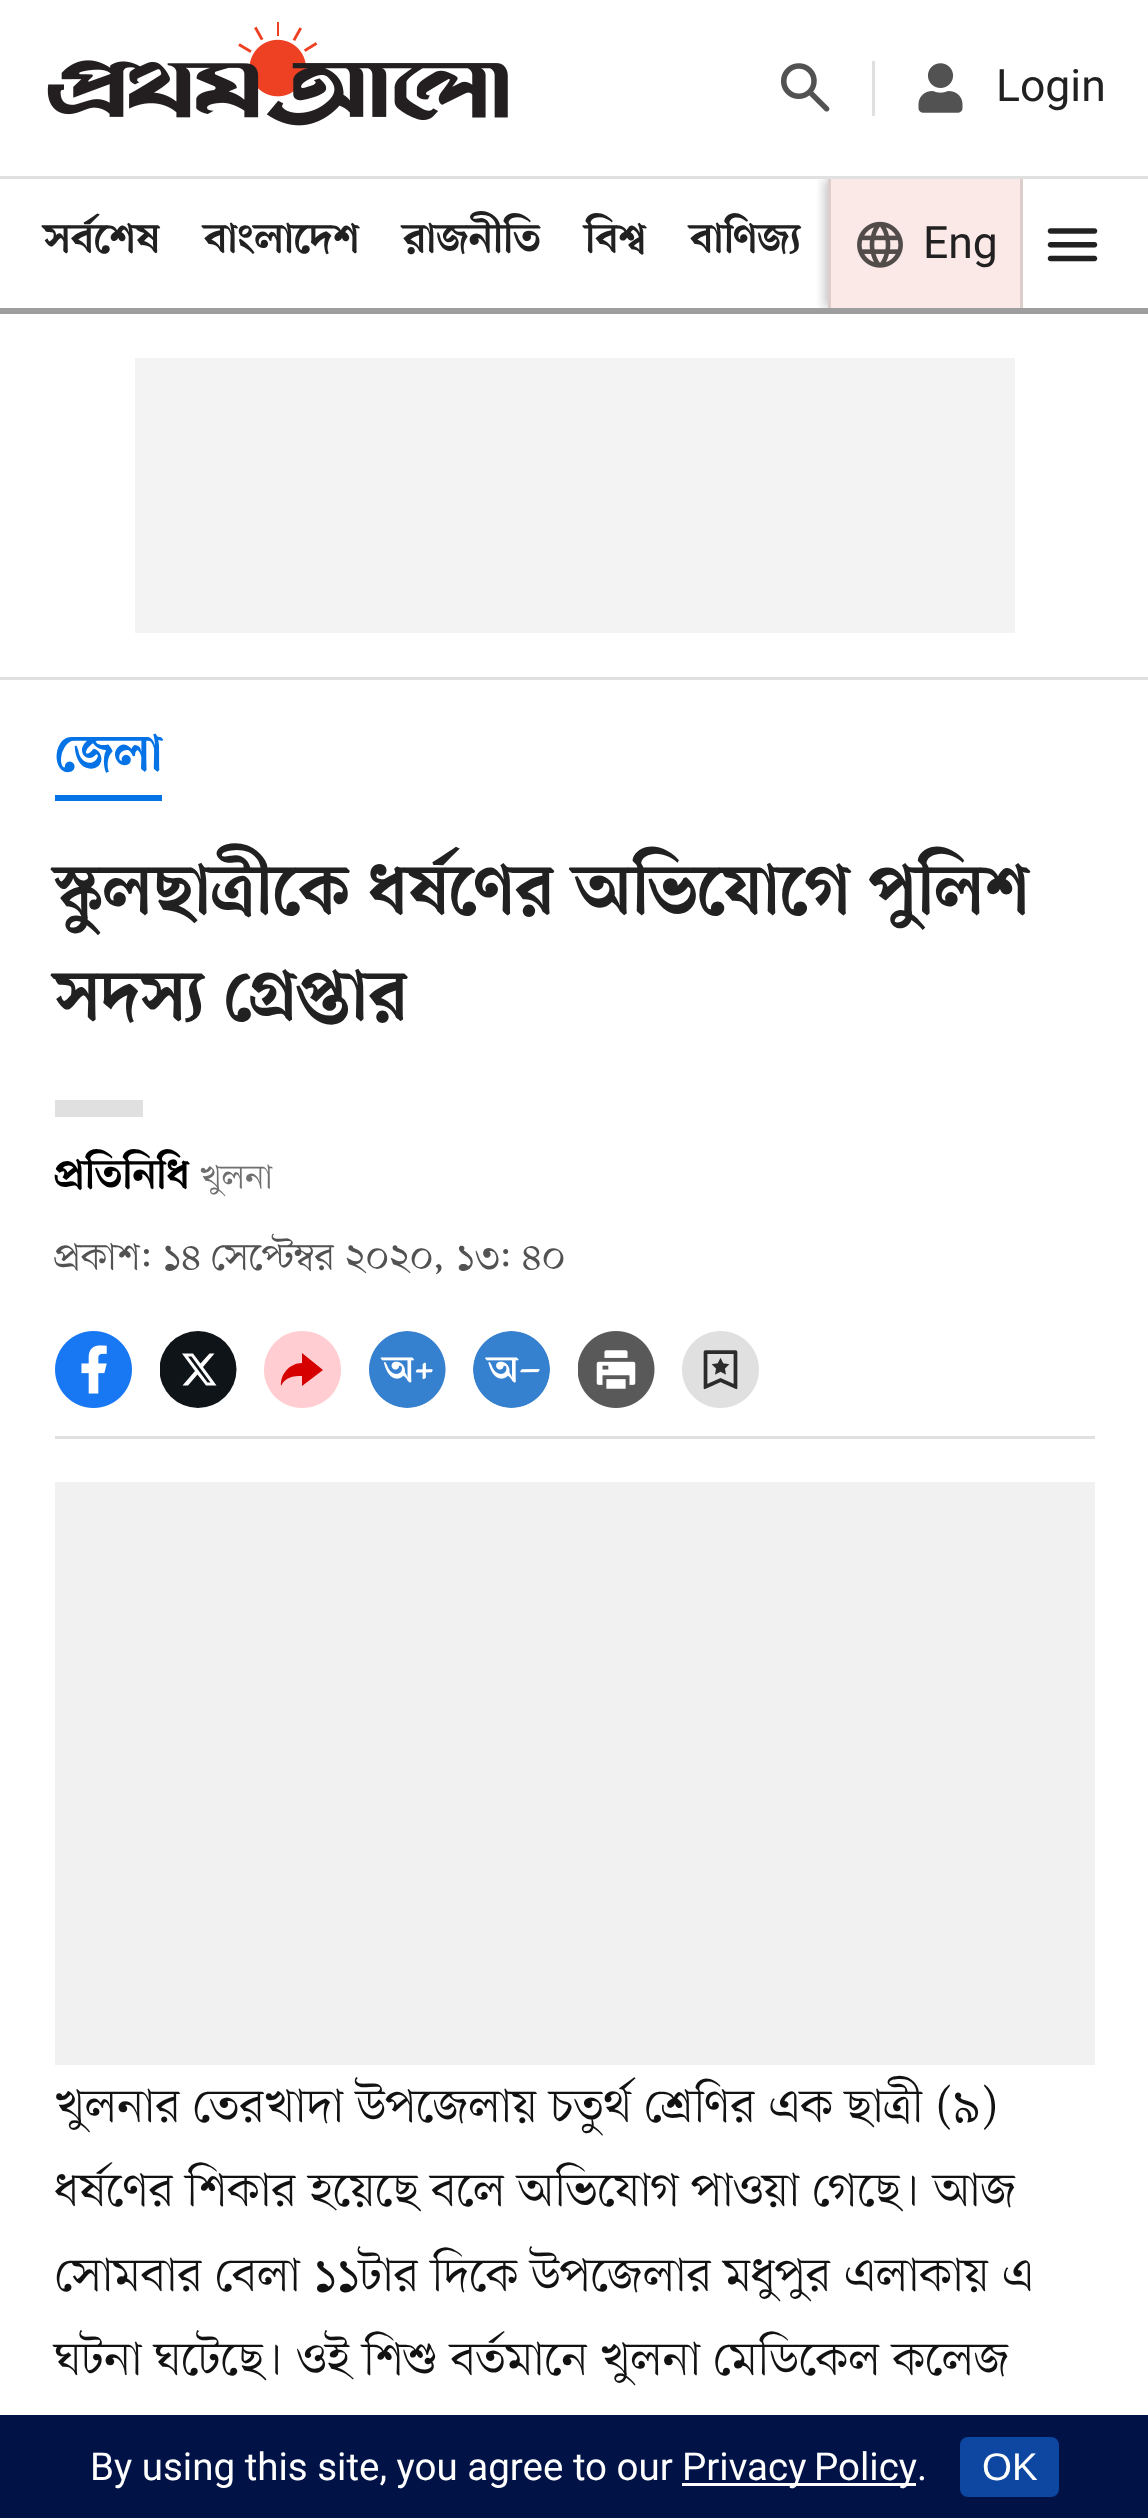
<!DOCTYPE html>
<meta charset="utf-8">
<style>body { margin: 0 } canvas { display: block }</style>
<canvas id="canvas" width="1148" height="2518"></canvas>
<img id="img1" src="img_01.png" hidden>
<img id="img2" src="img_02.png" hidden>
<img id="img3" src="img_03.png" hidden>
<img id="img4" src="img_04.png" hidden>
<img id="img5" src="img_05.png" hidden>
<img id="img6" src="img_06.png" hidden>
<img id="img7" src="img_07.png" hidden>
<img id="img8" src="img_08.png" hidden>
<img id="img9" src="img_09.png" hidden>
<img id="img10" src="img_10.png" hidden>
<script>
window.onload = function () {
	const canvas = document.getElementById("canvas");
	const ctx = canvas.getContext("2d");
	ctx.miterLimit = 4;
	ctx.fontKerning = "normal";
	function txt(s, x, y) {
		ctx.fillText(s, x, y);
	}
	function fill(x, y, w, h) {
		ctx.fillRect(x, y, w, h);
	}
	function round(x, y, w, h, r) {
		ctx.beginPath();
		ctx.roundRect(x, y, w, h, r);
		ctx.fill();
	}
	function img(id, x, y, w, h) {
		ctx.drawImage(document.getElementById(id), x, y, w, h);
	}

	ctx.fillStyle = "#FFFFFF";
	fill(0, 0, 1148, 2518);
	ctx.fillStyle = "#9E9E9E";
	fill(0, 308, 1148, 6);
	img("img1", 47, 22, 461, 104);
	img("img2", 781, 63, 49, 49);
	ctx.fillStyle = "#E0E0E0";
	fill(872, 61, 3, 55);
	img("img3", 918, 63, 45, 50);
	fill(0, 176, 1148, 3);
	ctx.save();
	ctx.beginPath();
	ctx.rect(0, 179, 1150, 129);
	ctx.clip();
	ctx.beginPath();
	ctx.rect(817, 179, 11, 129);
	ctx.clip();
	ctx.fillStyle = "rgba(0, 0, 0, 0.25)";
	ctx.filter = "blur(5.5px)";
	ctx.beginPath();
	ctx.rect(825, 179, 322, 129);
	ctx.fill();
	ctx.filter = "none";
	ctx.restore();
	ctx.fillStyle = "#FBE9E7";
	fill(831, 179, 189, 129);
	ctx.fillStyle = "#DDCDCB";
	fill(1020, 179, 3, 129);
	fill(828, 179, 3, 129);
	img("img4", 857, 221, 46, 47);
	img("img5", 1047, 228, 51, 34);
	ctx.fillStyle = "#E0E0E0";
	fill(0, 677, 1148, 3);
	ctx.fillStyle = "#F3F3F3";
	fill(135, 358, 880, 275);
	ctx.fillStyle = "#0573E6";
	fill(55, 795, 107, 6);
	ctx.fillStyle = "#E0E0E0";
	fill(55, 1436, 1040, 3);
	fill(55, 1100, 88, 17);
	img("img6", 55, 1331, 77, 77);
	ctx.save();
	ctx.beginPath();
	ctx.rect(160, 1331, 77, 77);
	ctx.clip();
	ctx.fillStyle = "#0F1419";
	ctx.beginPath();
	ctx.arc(198, 1369.5, 38.5, 0, Math.PI * 2);
	ctx.fill();
	ctx.restore();
	ctx.fillStyle = "#FFCDD2";
	ctx.beginPath();
	ctx.moveTo(302, 1331);
	ctx.bezierCurveTo(324, 1331, 341, 1348, 341, 1370);
	ctx.bezierCurveTo(341, 1391, 324, 1408, 302, 1408);
	ctx.bezierCurveTo(281, 1408, 264, 1391, 264, 1370);
	ctx.bezierCurveTo(264, 1348, 281, 1331, 302, 1331);
	ctx.closePath();
	ctx.fill();
	ctx.fillStyle = "#EEEEEE";
	ctx.beginPath();
	ctx.arc(407.5, 1369.5, 38.5, 0, Math.PI * 2);
	ctx.fill();
	img("img7", 369, 1331, 77, 77);
	ctx.beginPath();
	ctx.arc(511.5, 1369.5, 38.5, 0, Math.PI * 2);
	ctx.fill();
	ctx.fillStyle = "#FFFFFF";
	ctx.beginPath();
	ctx.moveTo(209.5, 1353.5);
	ctx.lineTo(214.5, 1353.5);
	ctx.lineTo(203, 1367);
	ctx.lineTo(216.5, 1385.5);
	ctx.lineTo(206, 1385.5);
	ctx.lineTo(197.5, 1374.5);
	ctx.lineTo(188, 1385.5);
	ctx.lineTo(182.5, 1385.5);
	ctx.lineTo(195, 1371);
	ctx.lineTo(182, 1353.5);
	ctx.lineTo(193, 1353.5);
	ctx.lineTo(200.5, 1363.5);
	ctx.closePath();
	ctx.moveTo(207.5, 1382.5);
	ctx.lineTo(210.5, 1382.5);
	ctx.lineTo(191.5, 1356.5);
	ctx.lineTo(188, 1356.5);
	ctx.closePath();
	ctx.fill();
	ctx.fillStyle = "#D60000";
	ctx.beginPath();
	ctx.moveTo(302, 1376);
	ctx.bezierCurveTo(293, 1376, 285, 1377, 281, 1386);
	ctx.bezierCurveTo(280, 1374, 290, 1363, 302, 1363);
	ctx.lineTo(302, 1353);
	ctx.lineTo(323, 1370);
	ctx.lineTo(302, 1386);
	ctx.closePath();
	ctx.fill();
	img("img8", 473, 1331, 77, 77);
	img("img9", 578, 1331, 77, 77);
	img("img10", 682, 1331, 77, 77);
	ctx.fillStyle = "#F1F1F1";
	fill(55, 1482, 1040, 583);
	ctx.fillStyle = "#001246";
	fill(0, 2415, 1148, 103);
	ctx.fillStyle = "#FFFFFF";
	fill(682, 2483, 234, 3);
	ctx.fillStyle = "#0D47A1";
	round(960, 2437, 99, 60, 8);
	ctx.font = "44.5px Roboto";
	ctx.fillStyle = "#212121";
	txt("Login", 996, 101);
	ctx.font = "bold 44.5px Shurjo";
	txt("সর্বশেষ", 44, 252);
	txt("বাংলাদেশ", 204, 252);
	txt("রাজনীতি", 403, 252);
	txt("বিশ্ব", 585, 252);
	txt("বাণিজ্য", 690, 252);
	ctx.font = "44.5px Roboto";
	txt("Eng", 923, 258);
	ctx.font = "bold 55px Shurjo";
	ctx.fillStyle = "#0573E6";
	txt("জেলা", 55, 770);
	ctx.font = "bold 75.75px Shurjo";
	ctx.fillStyle = "#212121";
	txt("স্কুলছাত্রীকে ধর্ষণের অভিযোগে পুলিশ", 55, 913);
	txt("সদস্য গ্রেপ্তার", 55, 1019);
	ctx.font = "bold 44.5px Shurjo";
	ctx.fillStyle = "#000000";
	txt("প্রতিনিধি", 55, 1188);
	ctx.font = "36px Shurjo";
	ctx.fillStyle = "#6F6F6F";
	txt("খুলনা", 200, 1188);
	ctx.font = "40px Shurjo";
	ctx.fillStyle = "#525252";
	txt("প্রকাশ: ১৪ সেপ্টেম্বর ২০২০, ১৩: ৪০", 55, 1269);
	ctx.font = "49.5px Shurjo";
	ctx.fillStyle = "#121212";
	txt("খুলনার তেরখাদা উপজেলায় চতুর্থ শ্রেণির এক ছাত্রী (৯)", 55, 2121);
	txt("ধর্ষণের শিকার হয়েছে বলে অভিযোগ পাওয়া গেছে। আজ", 55, 2205);
	txt("সোমবার বেলা ১১টার দিকে উপজেলার মধুপুর এলাকায় এ", 55, 2290);
	txt("ঘটনা ঘটেছে। ওই শিশু বর্তমানে খুলনা মেডিকেল কলেজ", 55, 2374);
	ctx.font = "38.5px Roboto";
	ctx.fillStyle = "#FFFFFF";
	txt("By using this site, you agree to our", 90, 2480);
	ctx.wordSpacing = "-2px";
	txt("Privacy Policy", 682, 2480);
	ctx.wordSpacing = "0px";
	txt(".", 917, 2480);
	ctx.font = "38.5px Liberation Sans";
	txt("OK", 982, 2480);
};
</script>
